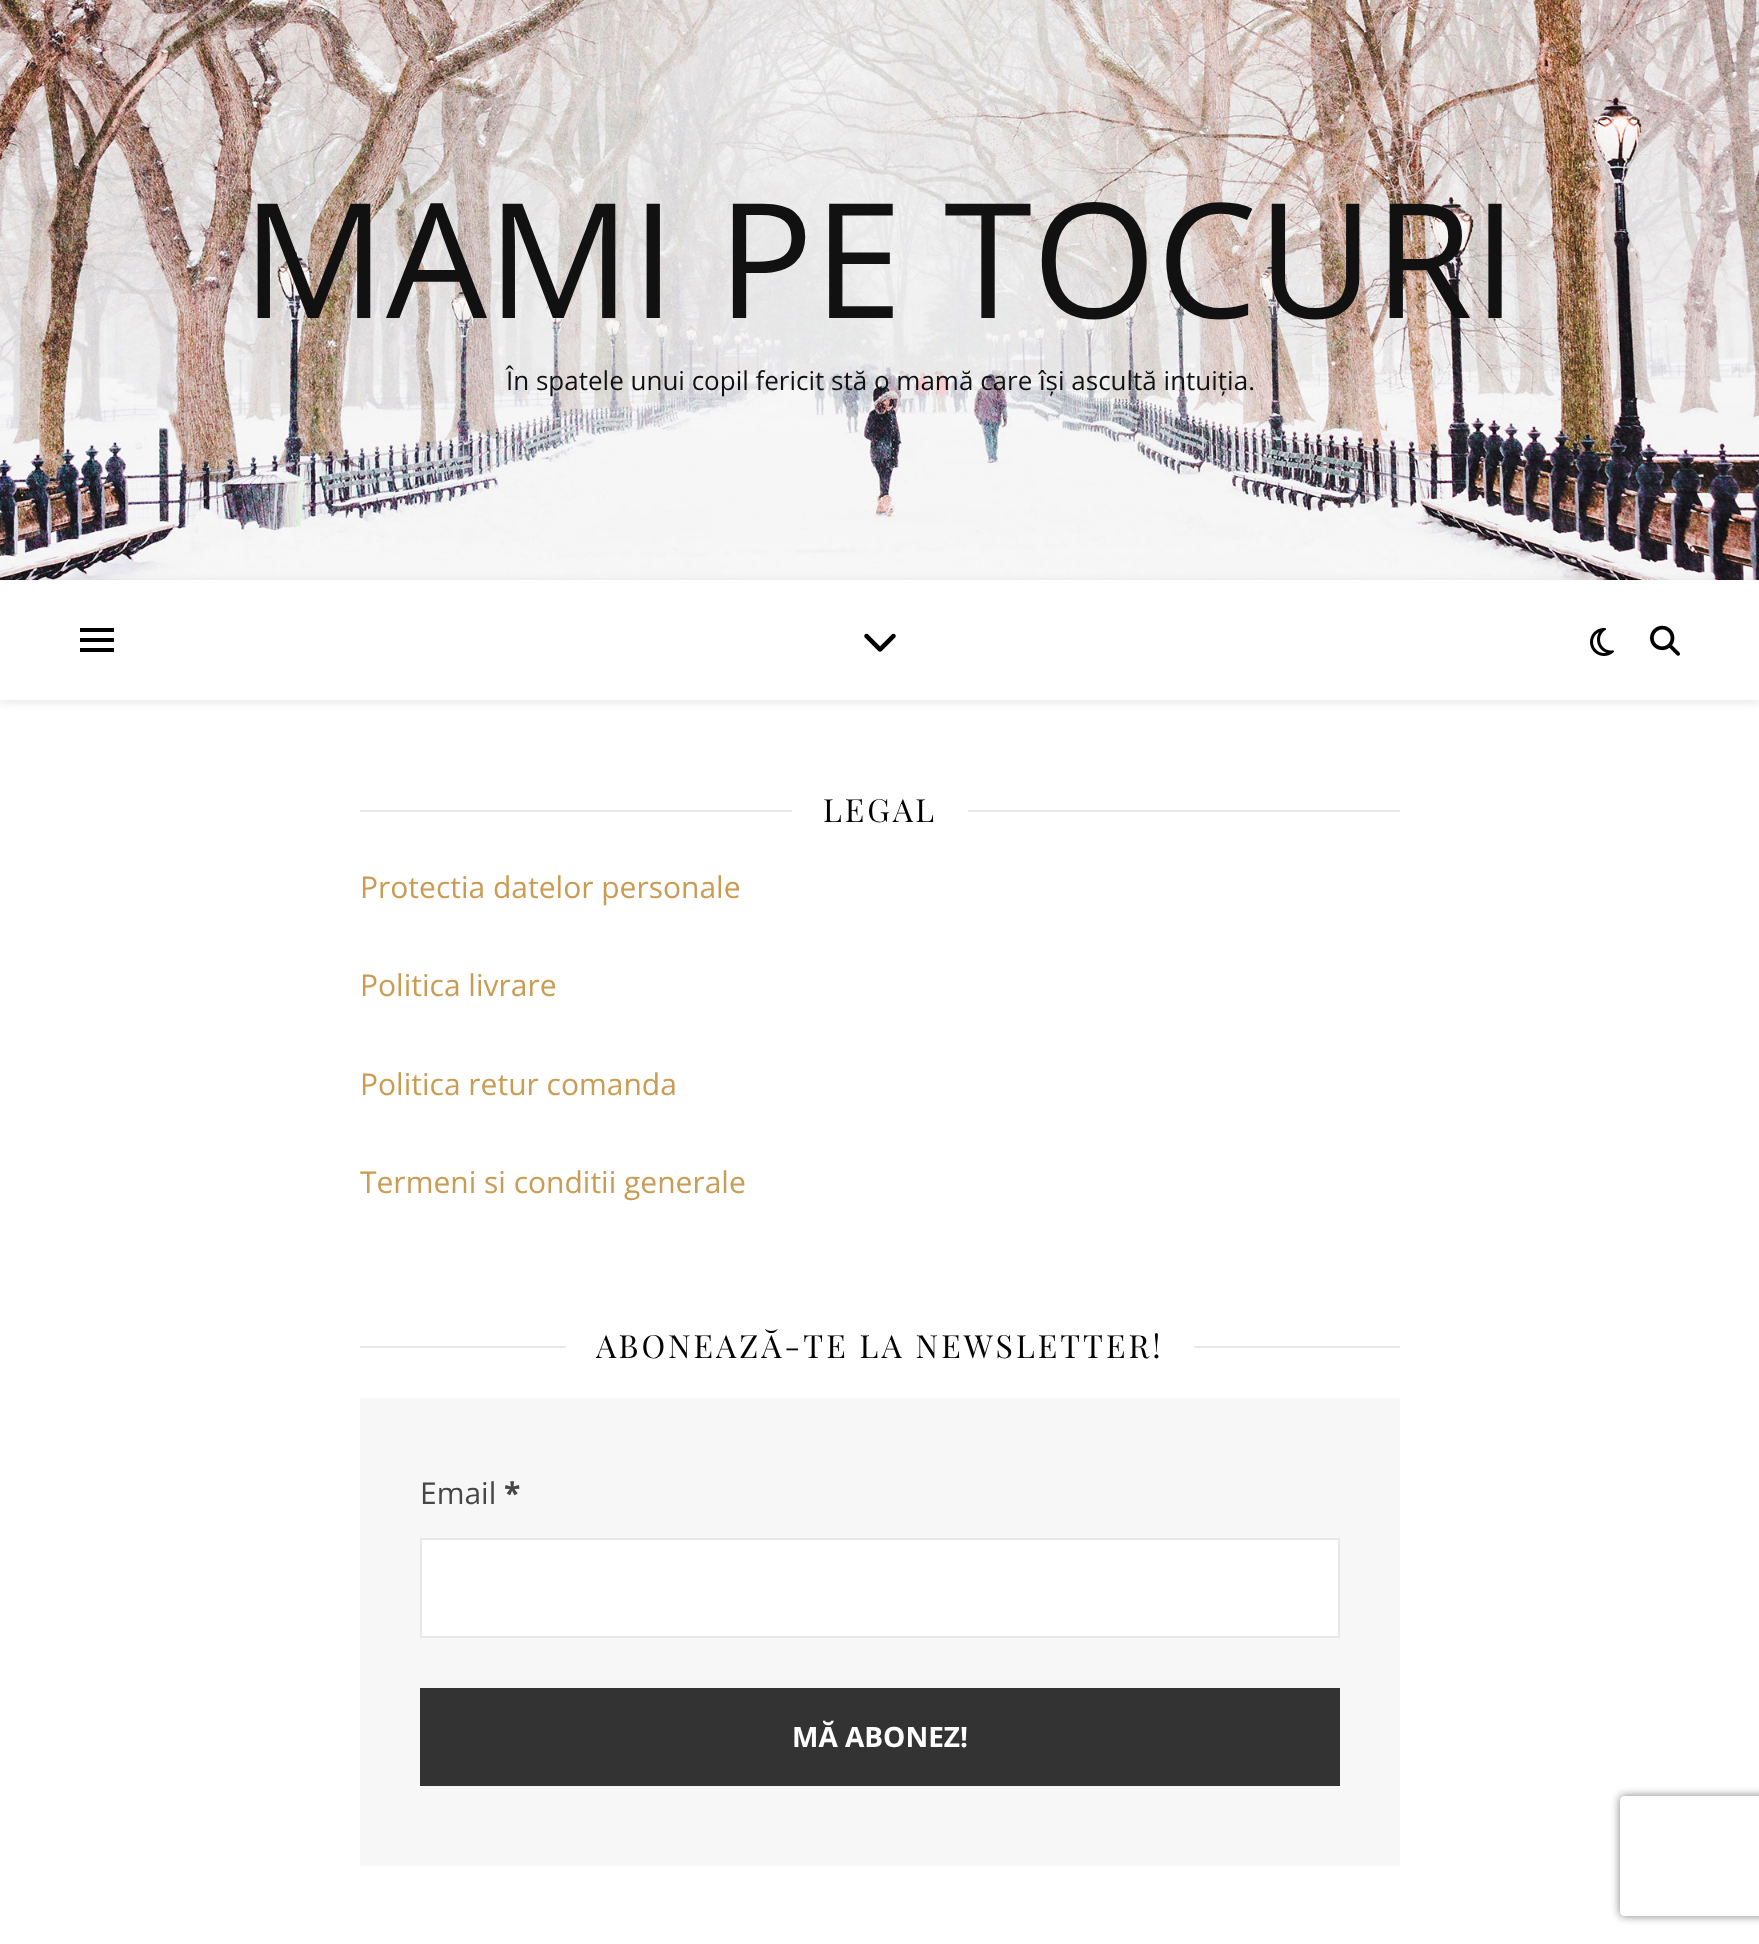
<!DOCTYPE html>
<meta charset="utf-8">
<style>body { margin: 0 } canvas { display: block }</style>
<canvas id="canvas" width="1759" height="1944"></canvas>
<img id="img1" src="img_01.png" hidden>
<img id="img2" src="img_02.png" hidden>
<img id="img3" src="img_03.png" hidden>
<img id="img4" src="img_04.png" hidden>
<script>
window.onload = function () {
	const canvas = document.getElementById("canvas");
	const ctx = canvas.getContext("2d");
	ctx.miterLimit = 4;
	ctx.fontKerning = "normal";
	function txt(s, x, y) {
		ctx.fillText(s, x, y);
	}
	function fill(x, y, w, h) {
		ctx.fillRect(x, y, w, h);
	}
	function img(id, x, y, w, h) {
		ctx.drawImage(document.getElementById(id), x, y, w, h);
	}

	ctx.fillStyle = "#FFFFFF";
	fill(0, 0, 1759, 1944);
	img("img1", 0, 0, 1759, 580);
	ctx.save();
	ctx.beginPath();
	ctx.moveTo(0, 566);
	ctx.lineTo(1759, 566);
	ctx.lineTo(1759, 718);
	ctx.lineTo(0, 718);
	ctx.closePath();
	ctx.moveTo(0, 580);
	ctx.lineTo(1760, 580);
	ctx.lineTo(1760, 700);
	ctx.lineTo(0, 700);
	ctx.closePath();
	ctx.clip("evenodd");
	ctx.fillStyle = "rgba(0, 0, 0, 0.1)";
	ctx.filter = "blur(5px)";
	ctx.beginPath();
	ctx.rect(0, 582, 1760, 120);
	ctx.fill();
	ctx.filter = "none";
	ctx.restore();
	ctx.fillStyle = "#000000";
	fill(80, 628, 34, 4);
	fill(80, 638, 34, 4);
	fill(80, 648, 34, 4);
	img("img2", 864, 633, 32, 19);
	img("img3", 1590, 628, 24, 28);
	img("img4", 1650, 625, 30, 31);
	ctx.fillStyle = "#E8E8E8";
	fill(360, 810, 432, 2);
	fill(968, 810, 432, 2);
	fill(360, 1346, 206, 2);
	fill(1194, 1346, 206, 2);
	ctx.fillStyle = "#F7F7F7";
	fill(360, 1398, 1040, 468);
	ctx.fillStyle = "#FFFFFF";
	ctx.beginPath();
	ctx.rect(421, 1539, 918, 98);
	ctx.fill();
	ctx.strokeStyle = "#E8E8E8";
	ctx.lineWidth = 2;
	ctx.stroke();
	ctx.fillStyle = "#333333";
	fill(420, 1688, 920, 98);
	ctx.save();
	ctx.beginPath();
	ctx.moveTo(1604, 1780);
	ctx.lineTo(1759, 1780);
	ctx.lineTo(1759, 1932);
	ctx.lineTo(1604, 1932);
	ctx.closePath();
	ctx.moveTo(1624, 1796);
	ctx.lineTo(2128, 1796);
	ctx.bezierCurveTo(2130, 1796, 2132, 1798, 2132, 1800);
	ctx.lineTo(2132, 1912);
	ctx.bezierCurveTo(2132, 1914, 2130, 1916, 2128, 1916);
	ctx.lineTo(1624, 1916);
	ctx.bezierCurveTo(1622, 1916, 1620, 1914, 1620, 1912);
	ctx.lineTo(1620, 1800);
	ctx.bezierCurveTo(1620, 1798, 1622, 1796, 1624, 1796);
	ctx.closePath();
	ctx.clip("evenodd");
	ctx.fillStyle = "#808080";
	ctx.filter = "blur(5px)";
	ctx.beginPath();
	ctx.roundRect(1620, 1796, 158, 120, 4);
	ctx.fill();
	ctx.filter = "none";
	ctx.restore();
	ctx.font = "160px Open Sans";
	ctx.fillStyle = "#111111";
	txt("MAMI PE TOCURI", 242, 318);
	ctx.font = "26px Open Sans";
	txt("În spatele unui copil fericit stă o mamă care își ascultă intuiția.", 506, 390);
	ctx.letterSpacing = "3px";
	ctx.font = "32px Playfair Display";
	ctx.fillStyle = "#030303";
	txt("LEGAL", 823, 822);
	ctx.letterSpacing = "0px";
	ctx.font = "30px Open Sans";
	ctx.fillStyle = "#CA9B52";
	txt("Protectia datelor personale", 360, 898);
	txt("Politica livrare", 360, 996);
	txt("Politica retur comanda", 360, 1095);
	txt("Termeni si conditii generale", 360, 1193);
	ctx.letterSpacing = "3px";
	ctx.font = "32px Playfair Display";
	ctx.fillStyle = "#030303";
	txt("ABONEAZĂ-TE LA NEWSLETTER!", 596, 1358);
	ctx.letterSpacing = "0px";
	ctx.font = "30px Open Sans";
	ctx.fillStyle = "#464646";
	txt("Email", 420, 1504);
	ctx.font = "bold 30px Open Sans";
	txt("*", 504, 1504);
	ctx.font = "bold 28px Open Sans";
	ctx.fillStyle = "#FFFFFF";
	txt("MĂ ABONEZ!", 792, 1747);
};
</script>
